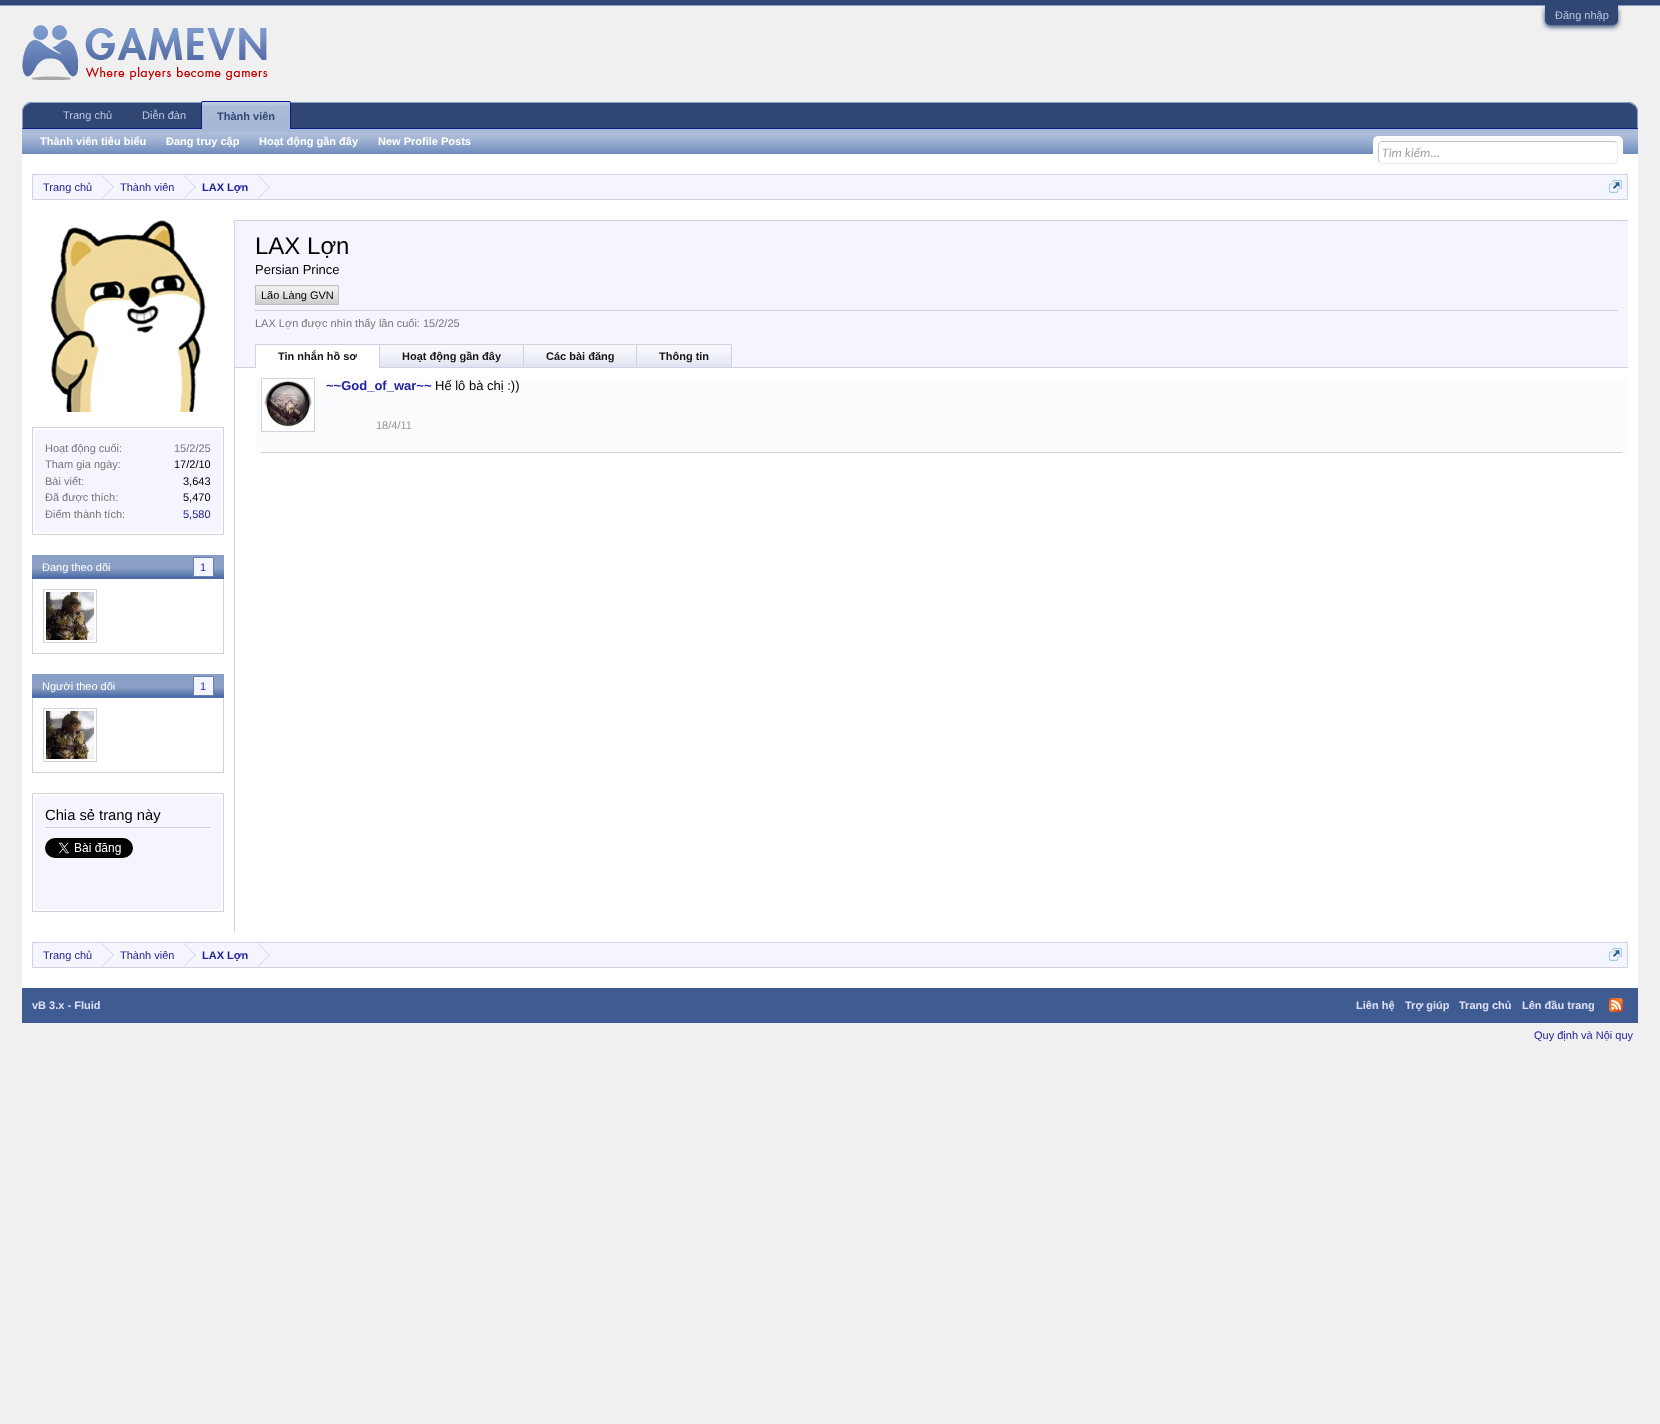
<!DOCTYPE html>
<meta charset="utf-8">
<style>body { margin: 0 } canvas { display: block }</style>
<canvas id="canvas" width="1660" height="1424"></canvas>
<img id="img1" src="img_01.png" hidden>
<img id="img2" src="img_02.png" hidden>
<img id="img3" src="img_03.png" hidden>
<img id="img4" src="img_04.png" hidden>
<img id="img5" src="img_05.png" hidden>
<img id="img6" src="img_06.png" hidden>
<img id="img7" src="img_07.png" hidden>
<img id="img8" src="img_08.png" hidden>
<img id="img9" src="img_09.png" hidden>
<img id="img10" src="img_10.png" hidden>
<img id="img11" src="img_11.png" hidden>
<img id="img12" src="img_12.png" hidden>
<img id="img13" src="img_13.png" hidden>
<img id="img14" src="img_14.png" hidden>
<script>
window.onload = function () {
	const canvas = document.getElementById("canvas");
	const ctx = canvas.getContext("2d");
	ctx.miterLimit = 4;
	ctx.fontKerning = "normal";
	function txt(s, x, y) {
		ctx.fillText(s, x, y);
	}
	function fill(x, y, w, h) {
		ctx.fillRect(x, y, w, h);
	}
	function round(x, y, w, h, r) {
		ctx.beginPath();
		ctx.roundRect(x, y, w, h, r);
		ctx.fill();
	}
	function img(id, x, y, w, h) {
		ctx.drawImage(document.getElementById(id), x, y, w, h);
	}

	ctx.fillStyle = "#F0F0F0";
	fill(0, 0, 1660, 1424);
	ctx.fillStyle = "#304774";
	fill(0, 0, 1660, 5);
	ctx.fillStyle = "#899FC5";
	fill(0, 5, 1660, 1);
	ctx.fillStyle = "#304774";
	ctx.filter = "blur(2.5px)";
	ctx.beginPath();
	ctx.roundRect(1545, 7, 73, 20, 5);
	ctx.fill();
	ctx.filter = "none";
	ctx.beginPath();
	ctx.roundRect(1545, 5, 73, 20, [0, 0, 5, 5]);
	ctx.fill();
	img("img1", 22, 25, 246, 55);
	ctx.beginPath();
	ctx.roundRect(22, 102, 1616, 27, [10, 10, 0, 0]);
	ctx.fill();
	ctx.fillStyle = "#899FC5";
	ctx.beginPath();
	ctx.moveTo(32, 102);
	ctx.bezierCurveTo(29, 102, 26, 103, 25, 105);
	ctx.lineTo(26, 106);
	ctx.bezierCurveTo(27, 104, 30, 103, 32, 103);
	ctx.lineTo(1628, 103);
	ctx.bezierCurveTo(1630, 103, 1633, 104, 1634, 106);
	ctx.lineTo(1635, 105);
	ctx.bezierCurveTo(1634, 103, 1631, 102, 1628, 102);
	ctx.closePath();
	ctx.fill();
	ctx.beginPath();
	ctx.moveTo(1638, 129);
	ctx.lineTo(1638, 112);
	ctx.bezierCurveTo(1638, 109, 1637, 106.5, 1635, 105);
	ctx.lineTo(1634.5, 105.5);
	ctx.bezierCurveTo(1636, 107, 1637, 109.5, 1637, 112);
	ctx.lineTo(1637, 128);
	ctx.closePath();
	ctx.fill();
	ctx.fillStyle = "#0B198C";
	ctx.beginPath();
	ctx.moveTo(1638, 129);
	ctx.lineTo(1637, 128);
	ctx.lineTo(23, 128);
	ctx.lineTo(22, 129);
	ctx.closePath();
	ctx.fill();
	ctx.fillStyle = "#899FC5";
	ctx.beginPath();
	ctx.moveTo(22, 129);
	ctx.lineTo(23, 128);
	ctx.lineTo(23, 112);
	ctx.bezierCurveTo(23, 109.5, 24, 107, 25.5, 105.5);
	ctx.lineTo(25, 105);
	ctx.bezierCurveTo(23, 106.5, 22, 109, 22, 112);
	ctx.closePath();
	ctx.fill();
	ctx.fillStyle = "#738FBF";
	ctx.beginPath();
	ctx.roundRect(201, 101, 90, 29, [2, 2, 0, 0]);
	ctx.fill();
	img("img2", 201, 102, 90, 27);
	ctx.beginPath();
	ctx.roundRect(201.5, 101.5, 89, 28, [1.5, 1.5, 0, 0]);
	ctx.strokeStyle = "#0B198C";
	ctx.stroke();
	fill(22, 129, 1616, 25);
	img("img3", 22, 129, 1616, 23);
	ctx.fillStyle = "#FFFFFF";
	fill(22, 154, 1616, 834);
	ctx.fillStyle = "#FCFCFF";
	round(1373, 136, 250, 28, 5);
	ctx.fillStyle = "#FFFFFF";
	fill(1373, 141, 250, 23);
	ctx.beginPath();
	ctx.moveTo(1616.5, 142.5);
	ctx.bezierCurveTo(1618.5, 145, 1617.5, 154.5, 1617.5, 157.5);
	ctx.bezierCurveTo(1617.5, 160, 1617.5, 163.5, 1614, 163.5);
	ctx.lineTo(1382, 163.5);
	ctx.lineTo(1379.5, 162.5);
	ctx.strokeStyle = "#E9E9E9";
	ctx.stroke();
	ctx.beginPath();
	ctx.moveTo(1379.5, 162.5);
	ctx.bezierCurveTo(1377.5, 160, 1378.5, 150.5, 1378.5, 147.5);
	ctx.bezierCurveTo(1378.5, 145, 1378.5, 141.5, 1382, 141.5);
	ctx.lineTo(1614, 141.5);
	ctx.lineTo(1616.5, 142.5);
	ctx.strokeStyle = "#C0C0C0";
	ctx.stroke();
	ctx.fillStyle = "#F5F5FF";
	ctx.beginPath();
	ctx.rect(32.5, 174.5, 1595, 25);
	ctx.fill();
	ctx.strokeStyle = "#D1D1E1";
	ctx.stroke();
	ctx.fillStyle = "#D1D1E1";
	ctx.beginPath();
	ctx.moveTo(102, 199);
	ctx.lineTo(102, 175);
	ctx.lineTo(114, 187);
	ctx.closePath();
	ctx.fill();
	ctx.fillStyle = "#F5F5FF";
	ctx.beginPath();
	ctx.moveTo(101, 199);
	ctx.lineTo(101, 175);
	ctx.lineTo(113, 187);
	ctx.closePath();
	ctx.fill();
	ctx.fillStyle = "#D1D1E1";
	ctx.beginPath();
	ctx.moveTo(184, 199);
	ctx.lineTo(184, 175);
	ctx.lineTo(196, 187);
	ctx.closePath();
	ctx.fill();
	ctx.fillStyle = "#F5F5FF";
	ctx.beginPath();
	ctx.moveTo(183, 199);
	ctx.lineTo(183, 175);
	ctx.lineTo(195, 187);
	ctx.closePath();
	ctx.fill();
	ctx.fillStyle = "#D1D1E1";
	ctx.beginPath();
	ctx.moveTo(258, 199);
	ctx.lineTo(258, 175);
	ctx.lineTo(270, 187);
	ctx.closePath();
	ctx.fill();
	ctx.fillStyle = "#F5F5FF";
	ctx.beginPath();
	ctx.moveTo(257, 199);
	ctx.lineTo(257, 175);
	ctx.lineTo(269, 187);
	ctx.closePath();
	ctx.fill();
	img("img4", 1609, 180, 13, 13);
	ctx.fillStyle = "#D1D1E1";
	fill(235, 220, 1393, 1);
	ctx.fillStyle = "#F5F5FF";
	fill(235, 221, 1393, 146);
	ctx.fillStyle = "#C0C0C0";
	fill(256, 286, 82, 18);
	img("img5", 256, 286, 82, 18);
	ctx.strokeStyle = "#C0C0C0";
	ctx.strokeRect(255.5, 285.5, 83, 19);
	ctx.fillStyle = "#D1D1E1";
	fill(255, 310, 1363, 1);
	fill(235, 367, 1393, 1);
	ctx.fillStyle = "#FFFFFF";
	fill(256, 345, 123, 23);
	ctx.fillStyle = "#D1D1E1";
	fill(255, 344, 477, 1);
	fill(255, 344, 1, 24);
	ctx.fillStyle = "#E1E4F2";
	fill(380, 345, 143, 22);
	img("img6", 380, 345, 143, 20);
	ctx.fillStyle = "#D1D1E1";
	fill(379, 344, 1, 23);
	ctx.fillStyle = "#E1E4F2";
	fill(524, 345, 112, 22);
	img("img7", 524, 345, 112, 20);
	ctx.fillStyle = "#D1D1E1";
	fill(523, 344, 1, 23);
	ctx.fillStyle = "#E1E4F2";
	fill(637, 345, 94, 22);
	img("img8", 637, 345, 94, 20);
	ctx.fillStyle = "#D1D1E1";
	fill(731, 344, 1, 23);
	fill(636, 344, 1, 23);
	ctx.fillStyle = "#FCFCFF";
	fill(255, 378, 1373, 75);
	ctx.fillStyle = "#D1D1E1";
	fill(261, 452, 1361, 1);
	ctx.fillStyle = "#FFFFFF";
	ctx.beginPath();
	ctx.rect(261.5, 378.5, 53, 53);
	ctx.fill();
	ctx.strokeStyle = "#D1D1E1";
	ctx.stroke();
	img("img9", 264, 381, 48, 46);
	ctx.fillStyle = "#D1D1E1";
	fill(234, 220, 1, 712);
	img("img10", 50, 220, 156, 192);
	ctx.strokeRect(32.5, 427.5, 191, 107);
	ctx.fillStyle = "#F5F5FF";
	fill(35, 430, 186, 102);
	ctx.fillStyle = "#4B6CA6";
	fill(32, 555, 192, 24);
	img("img11", 32, 555, 192, 22);
	ctx.fillStyle = "#F5F5FF";
	ctx.beginPath();
	ctx.rect(193.5, 557.5, 20, 19);
	ctx.fill();
	ctx.strokeStyle = "#6682B3";
	ctx.stroke();
	ctx.fillStyle = "#D1D1E1";
	fill(223, 579, 1, 75);
	fill(32, 653, 192, 1);
	fill(32, 579, 1, 75);
	img("img12", 46, 592, 48, 48);
	ctx.strokeStyle = "#D1D1E1";
	ctx.strokeRect(43.5, 589.5, 53, 53);
	ctx.fillStyle = "#4B6CA6";
	fill(32, 674, 192, 24);
	img("img11", 32, 674, 192, 22);
	ctx.fillStyle = "#F5F5FF";
	ctx.beginPath();
	ctx.rect(193.5, 676.5, 20, 19);
	ctx.fill();
	ctx.strokeStyle = "#6682B3";
	ctx.stroke();
	ctx.fillStyle = "#D1D1E1";
	fill(223, 698, 1, 75);
	fill(32, 772, 192, 1);
	fill(32, 698, 1, 75);
	img("img12", 46, 711, 48, 48);
	ctx.strokeStyle = "#D1D1E1";
	ctx.strokeRect(43.5, 708.5, 53, 53);
	ctx.strokeRect(32.5, 793.5, 191, 118);
	ctx.fillStyle = "#F5F5FF";
	fill(35, 796, 186, 113);
	ctx.fillStyle = "#D1D1E1";
	fill(45, 827, 166, 1);
	img("img13", 45, 838, 88, 20);
	ctx.fillStyle = "#F5F5FF";
	ctx.beginPath();
	ctx.rect(32.5, 942.5, 1595, 25);
	ctx.fill();
	ctx.stroke();
	ctx.fillStyle = "#D1D1E1";
	ctx.beginPath();
	ctx.moveTo(102, 967);
	ctx.lineTo(102, 943);
	ctx.lineTo(114, 955);
	ctx.closePath();
	ctx.fill();
	ctx.fillStyle = "#F5F5FF";
	ctx.beginPath();
	ctx.moveTo(101, 967);
	ctx.lineTo(101, 943);
	ctx.lineTo(113, 955);
	ctx.closePath();
	ctx.fill();
	ctx.fillStyle = "#D1D1E1";
	ctx.beginPath();
	ctx.moveTo(184, 967);
	ctx.lineTo(184, 943);
	ctx.lineTo(196, 955);
	ctx.closePath();
	ctx.fill();
	ctx.fillStyle = "#F5F5FF";
	ctx.beginPath();
	ctx.moveTo(183, 967);
	ctx.lineTo(183, 943);
	ctx.lineTo(195, 955);
	ctx.closePath();
	ctx.fill();
	ctx.fillStyle = "#D1D1E1";
	ctx.beginPath();
	ctx.moveTo(258, 967);
	ctx.lineTo(258, 943);
	ctx.lineTo(270, 955);
	ctx.closePath();
	ctx.fill();
	ctx.fillStyle = "#F5F5FF";
	ctx.beginPath();
	ctx.moveTo(257, 967);
	ctx.lineTo(257, 943);
	ctx.lineTo(269, 955);
	ctx.closePath();
	ctx.fill();
	img("img4", 1609, 948, 13, 13);
	ctx.fillStyle = "#3E5C92";
	fill(22, 988, 1616, 35);
	img("img14", 1609, 998, 14, 14);
	ctx.font = "11px Liberation Sans";
	ctx.fillStyle = "#B8C9E3";
	txt("Đăng nhập", 1555, 19);
	txt("Trang chủ", 63, 119);
	txt("Diễn đàn", 142, 119);
	ctx.font = "bold 11px Liberation Sans";
	ctx.fillStyle = "#304774";
	txt("Thành viên", 217, 120);
	ctx.fillStyle = "#FFFFFF";
	txt("Thành viên tiêu biểu", 40, 145);
	txt("Đang truy cập", 166, 145);
	txt("Hoạt động gần đây", 259, 145);
	txt("New Profile Posts", 378, 145);
	ctx.font = "italic 13px Carlito";
	ctx.fillStyle = "#A0A0A0";
	txt("Tìm kiếm...", 1382, 157);
	ctx.font = "11px Liberation Sans";
	ctx.fillStyle = "#22229C";
	txt("Trang chủ", 43, 191);
	txt("Thành viên", 120, 191);
	ctx.font = "bold 11px Liberation Sans";
	txt("LAX Lợn", 202, 191);
	ctx.font = "24px Liberation Sans";
	ctx.fillStyle = "#000000";
	txt("LAX Lợn", 255, 254);
	ctx.font = "13px Liberation Sans";
	txt("Persian Prince", 255, 274);
	ctx.font = "11px Liberation Sans";
	txt("Lão Làng GVN", 261, 299);
	ctx.fillStyle = "#777777";
	txt("LAX Lợn được nhìn thấy lần cuối: 15/2/25", 255, 327);
	ctx.font = "bold 11px Liberation Sans";
	ctx.fillStyle = "#141414";
	txt("Tin nhắn hồ sơ", 278, 360);
	txt("Hoạt động gần đây", 402, 360);
	txt("Các bài đăng", 546, 360);
	txt("Thông tin", 659, 360);
	ctx.font = "bold 13px Liberation Sans";
	ctx.fillStyle = "#22229C";
	txt("~~God_of_war~~", 326, 390);
	ctx.font = "13px Liberation Sans";
	ctx.fillStyle = "#000000";
	txt("Hế lô bà chị :))", 435, 390);
	ctx.font = "11px Liberation Sans";
	ctx.fillStyle = "#969696";
	txt("18/4/11", 376, 429);
	ctx.fillStyle = "#777777";
	txt("Hoạt động cuối:", 45, 452);
	txt("15/2/25", 174, 452);
	txt("Tham gia ngày:", 45, 468);
	ctx.fillStyle = "#000000";
	txt("17/2/10", 174, 468);
	ctx.fillStyle = "#777777";
	txt("Bài viết:", 45, 485);
	ctx.fillStyle = "#000000";
	txt("3,643", 183, 485);
	ctx.fillStyle = "#777777";
	txt("Đã được thích:", 45, 501);
	ctx.fillStyle = "#000000";
	txt("5,470", 183, 501);
	ctx.fillStyle = "#777777";
	txt("Điểm thành tích:", 45, 518);
	ctx.fillStyle = "#22229C";
	txt("5,580", 183, 518);
	ctx.fillStyle = "#FFFFFF";
	txt("Đang theo dõi", 42, 571);
	ctx.fillStyle = "#2222C9";
	txt("1", 200, 571);
	ctx.fillStyle = "#FFFFFF";
	txt("Người theo dõi", 42, 690);
	ctx.fillStyle = "#2222C9";
	txt("1", 200, 690);
	ctx.font = "14.75px Liberation Sans";
	ctx.fillStyle = "#000000";
	txt("Chia sẻ trang này", 45, 820);
	ctx.font = "11px Liberation Sans";
	ctx.fillStyle = "#22229C";
	txt("Trang chủ", 43, 959);
	txt("Thành viên", 120, 959);
	ctx.font = "bold 11px Liberation Sans";
	txt("LAX Lợn", 202, 959);
	ctx.fillStyle = "#E0E0F6";
	txt("vB 3.x - Fluid", 32, 1009);
	txt("Liên hệ", 1356, 1009);
	txt("Trợ giúp", 1405, 1009);
	txt("Trang chủ", 1459, 1009);
	txt("Lên đầu trang", 1522, 1009);
	ctx.font = "11px Liberation Sans";
	ctx.fillStyle = "#22229C";
	txt("Quy định và Nội quy", 1534, 1039);
};
</script>
